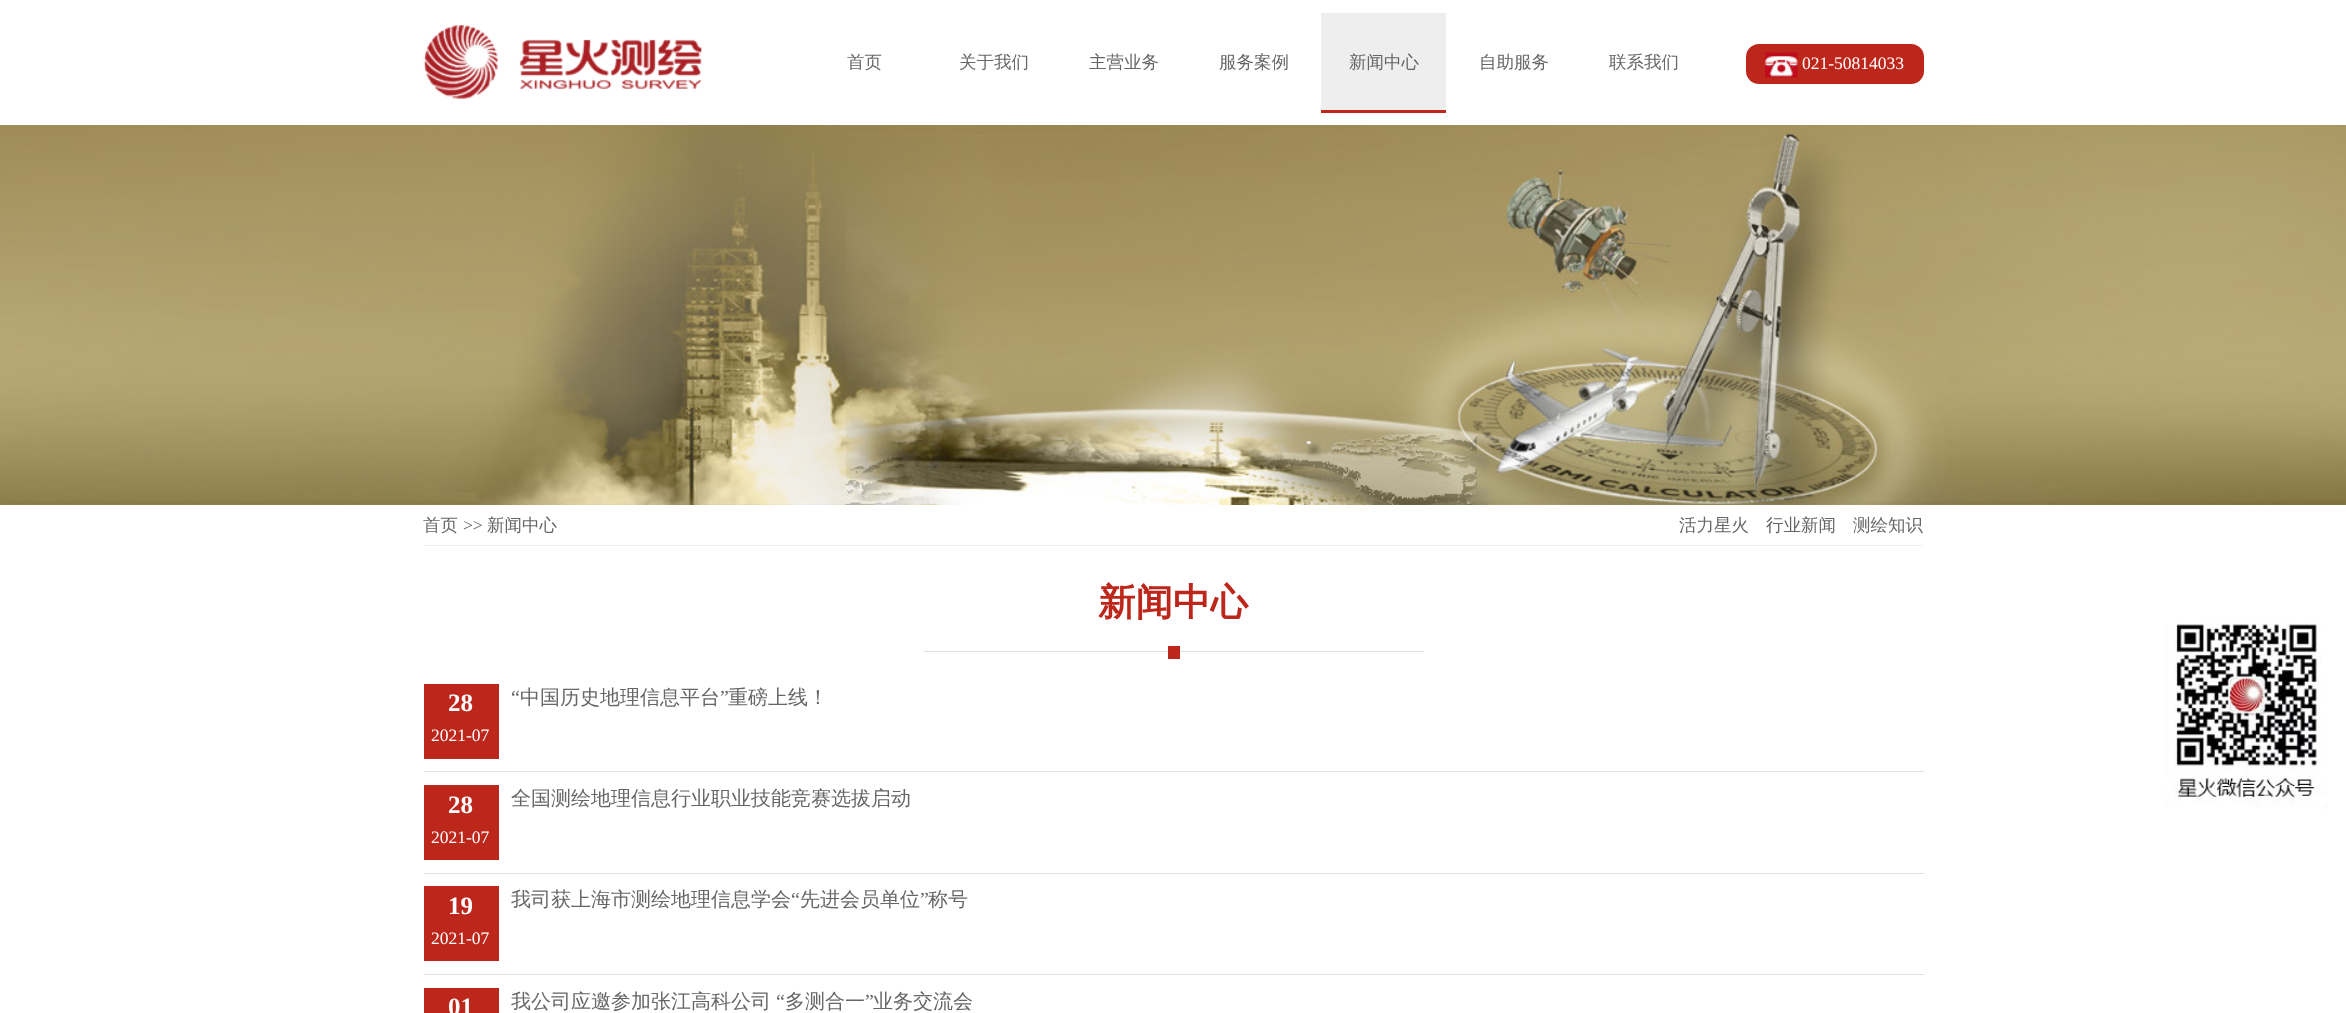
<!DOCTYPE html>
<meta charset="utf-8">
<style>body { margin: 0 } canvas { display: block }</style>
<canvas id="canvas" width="2346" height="1013"></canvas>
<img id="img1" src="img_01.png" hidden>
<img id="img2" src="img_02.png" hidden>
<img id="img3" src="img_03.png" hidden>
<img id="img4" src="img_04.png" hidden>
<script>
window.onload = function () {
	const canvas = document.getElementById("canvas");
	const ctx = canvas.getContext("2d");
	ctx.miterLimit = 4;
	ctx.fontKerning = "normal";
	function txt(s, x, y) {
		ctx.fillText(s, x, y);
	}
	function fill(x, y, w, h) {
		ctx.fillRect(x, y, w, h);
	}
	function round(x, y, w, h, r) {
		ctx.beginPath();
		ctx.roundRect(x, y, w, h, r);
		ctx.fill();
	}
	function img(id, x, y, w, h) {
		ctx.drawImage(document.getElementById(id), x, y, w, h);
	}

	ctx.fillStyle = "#FFFFFF";
	fill(0, 0, 2346, 1013);
	img("img1", 423, 25, 279, 74);
	ctx.fillStyle = "#EEEEEE";
	fill(1321, 13, 125, 97);
	ctx.fillStyle = "#BD271B";
	fill(1321, 110, 125, 3);
	round(1746, 44, 178, 40, 13);
	img("img2", 1765, 52, 33, 26);
	img("img3", 0, 125, 2346, 380);
	ctx.beginPath();
	ctx.moveTo(424, 545.5);
	ctx.lineTo(1924, 545.5);
	ctx.strokeStyle = "#DDDDDD";
	ctx.lineWidth = 1.2;
	ctx.setLineDash([1.25, 1.25]);
	ctx.stroke();
	ctx.fillStyle = "#DDDDDD";
	fill(924, 651, 500, 1);
	ctx.fillStyle = "#BD271B";
	fill(1168, 646, 12, 13);
	ctx.fillStyle = "#E2E2E2";
	fill(424, 771, 1500, 1);
	ctx.fillStyle = "#BD271B";
	fill(424, 684, 75, 75);
	ctx.fillStyle = "#E2E2E2";
	fill(424, 873, 1500, 1);
	ctx.fillStyle = "#BD271B";
	fill(424, 785, 75, 75);
	ctx.fillStyle = "#E2E2E2";
	fill(424, 974, 1500, 1);
	ctx.fillStyle = "#BD271B";
	fill(424, 886, 75, 75);
	fill(424, 988, 75, 25);
	img("img4", 2165, 623, 163, 186);
	ctx.font = "500 17.5px WenQuanYi Zen Hei";
	ctx.fillStyle = "#666666";
	txt("首页", 847, 68);
	txt("关于我们", 959, 68);
	txt("主营业务", 1089, 68);
	txt("服务案例", 1219, 68);
	txt("新闻中心", 1349, 68);
	txt("自助服务", 1479, 68);
	txt("联系我们", 1609, 68);
	ctx.font = "17.5px Liberation Serif";
	ctx.fillStyle = "#FFFFFF";
	txt("021-50814033", 1802, 69);
	ctx.font = "500 17.5px WenQuanYi Zen Hei";
	ctx.fillStyle = "#666666";
	txt("首页", 423, 531);
	ctx.font = "17.5px Liberation Serif";
	txt(">>", 463, 531);
	ctx.font = "500 17.5px WenQuanYi Zen Hei";
	txt("新闻中心", 487, 531);
	txt("活力星火", 1679, 531);
	txt("行业新闻", 1766, 531);
	txt("测绘知识", 1853, 531);
	ctx.font = "bold 37.5px WenQuanYi Zen Hei";
	ctx.fillStyle = "#BD271B";
	txt("新闻中心", 1098, 615);
	ctx.font = "bold 25px Liberation Serif";
	ctx.fillStyle = "#FFFFFF";
	txt("28", 448, 711);
	ctx.font = "17.5px Liberation Serif";
	txt("2021-07", 431, 741);
	ctx.font = "20px Liberation Serif";
	ctx.fillStyle = "#666666";
	txt("“", 511, 704);
	ctx.font = "500 20px WenQuanYi Zen Hei";
	txt("中国历史地理信息平台", 520, 704);
	ctx.font = "20px Liberation Serif";
	txt("”", 720, 704);
	ctx.font = "500 20px WenQuanYi Zen Hei";
	txt("重磅上线！", 728, 704);
	ctx.font = "bold 25px Liberation Serif";
	ctx.fillStyle = "#FFFFFF";
	txt("28", 448, 813);
	ctx.font = "17.5px Liberation Serif";
	txt("2021-07", 431, 843);
	ctx.font = "500 20px WenQuanYi Zen Hei";
	ctx.fillStyle = "#666666";
	txt("全国测绘地理信息行业职业技能竞赛选拔启动", 511, 805);
	ctx.font = "bold 25px Liberation Serif";
	ctx.fillStyle = "#FFFFFF";
	txt("19", 448, 914);
	ctx.font = "17.5px Liberation Serif";
	txt("2021-07", 431, 944);
	ctx.font = "500 20px WenQuanYi Zen Hei";
	ctx.fillStyle = "#666666";
	txt("我司获上海市测绘地理信息学会", 511, 906);
	ctx.font = "20px Liberation Serif";
	txt("“", 791, 906);
	ctx.font = "500 20px WenQuanYi Zen Hei";
	txt("先进会员单位", 800, 906);
	ctx.font = "20px Liberation Serif";
	txt("”", 920, 906);
	ctx.font = "500 20px WenQuanYi Zen Hei";
	txt("称号", 928, 906);
	ctx.font = "bold 25px Liberation Serif";
	ctx.fillStyle = "#FFFFFF";
	txt("01", 448, 1015);
	ctx.font = "500 20px WenQuanYi Zen Hei";
	ctx.fillStyle = "#666666";
	txt("我公司应邀参加张江高科公司", 511, 1008);
	ctx.font = "20px Liberation Serif";
	txt("“", 776, 1008);
	ctx.font = "500 20px WenQuanYi Zen Hei";
	txt("多测合一", 785, 1008);
	ctx.font = "20px Liberation Serif";
	txt("”", 865, 1008);
	ctx.font = "500 20px WenQuanYi Zen Hei";
	txt("业务交流会", 873, 1008);
};
</script>
